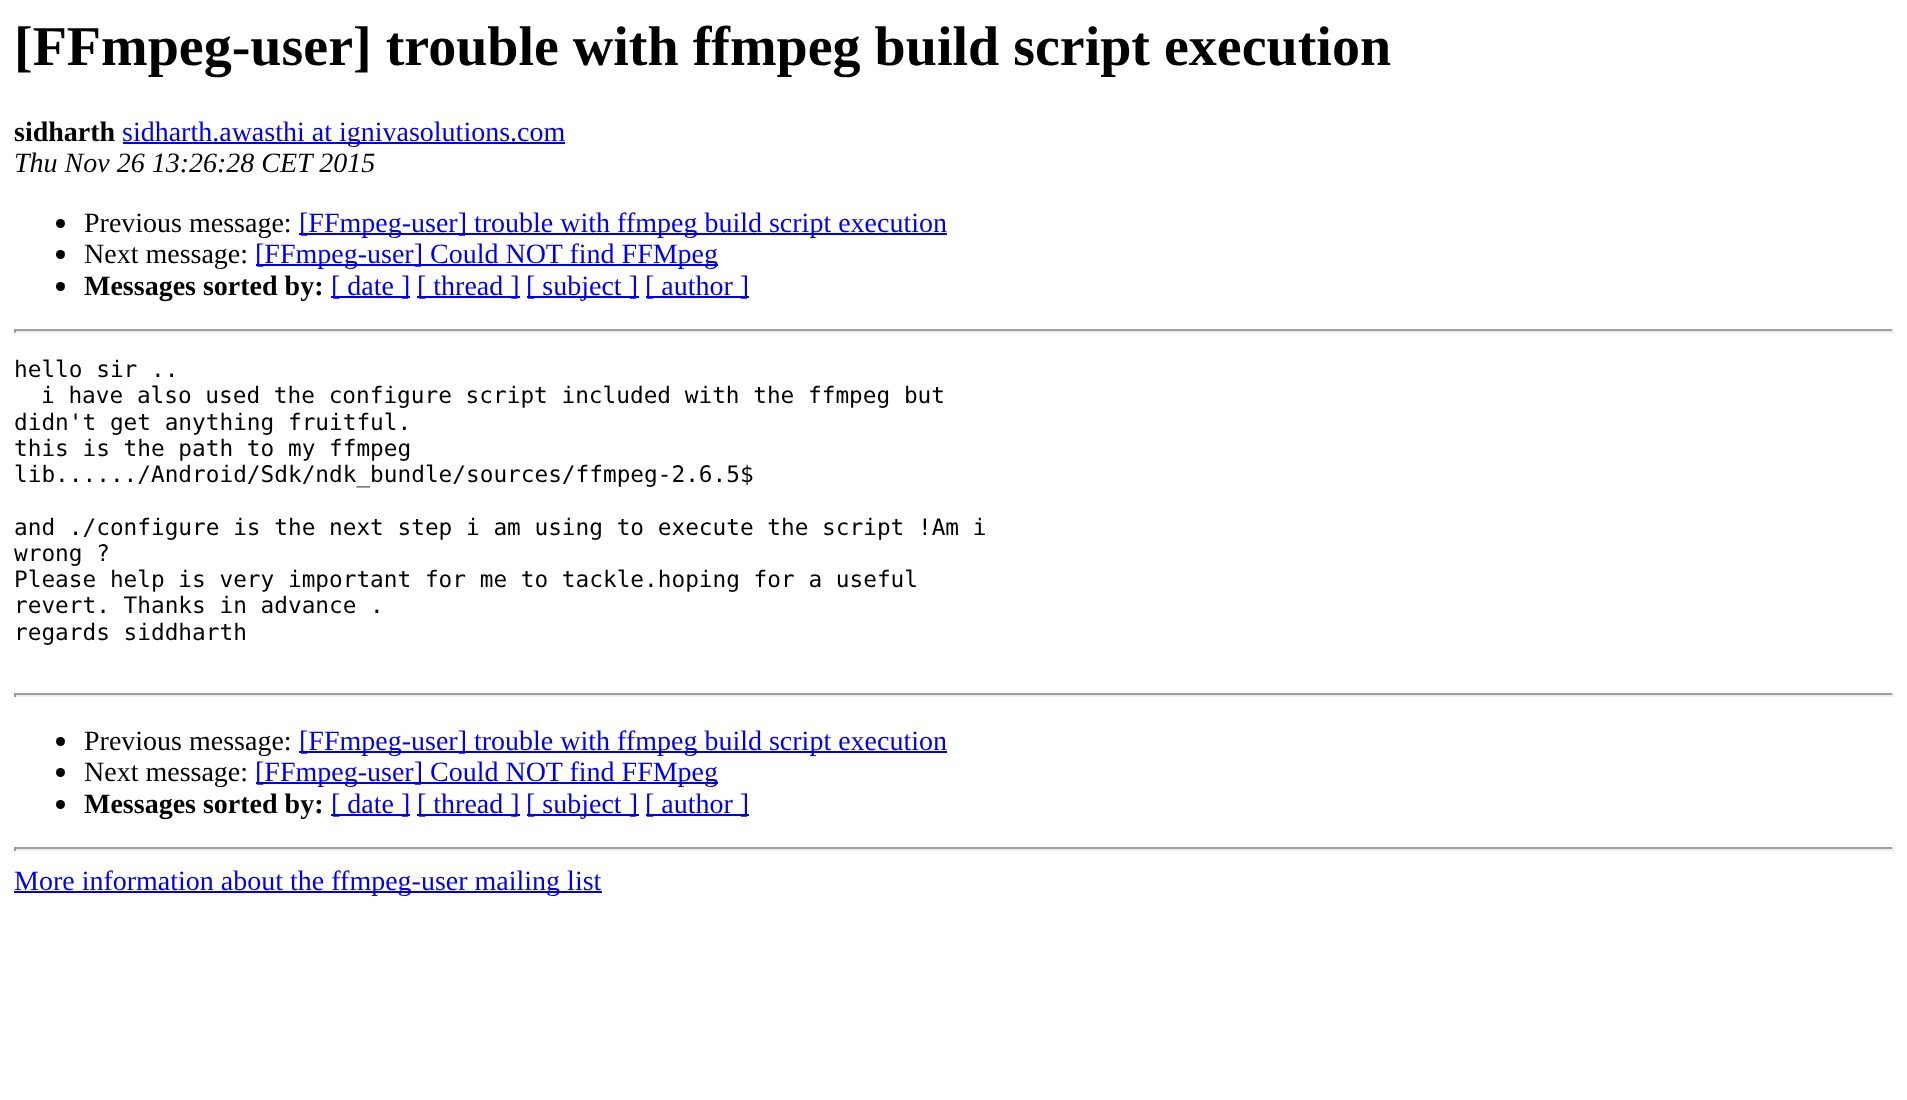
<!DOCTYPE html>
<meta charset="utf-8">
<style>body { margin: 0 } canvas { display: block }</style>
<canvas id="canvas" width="1907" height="1100"></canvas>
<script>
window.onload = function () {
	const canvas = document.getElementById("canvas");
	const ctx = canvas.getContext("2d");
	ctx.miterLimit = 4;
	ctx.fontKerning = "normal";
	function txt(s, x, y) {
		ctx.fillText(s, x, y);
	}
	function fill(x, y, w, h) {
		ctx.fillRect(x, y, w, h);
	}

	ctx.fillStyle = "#FFFFFF";
	fill(0, 0, 1907, 1100);
	ctx.fillStyle = "#0000EE";
	fill(123, 142, 442, 2);
	ctx.fillStyle = "#000000";
	ctx.beginPath();
	ctx.arc(60.5, 223.5, 4.5, 0, Math.PI * 2);
	ctx.fill();
	ctx.fillStyle = "#0000EE";
	fill(299, 233, 648, 2);
	ctx.fillStyle = "#000000";
	ctx.beginPath();
	ctx.arc(60.5, 254.5, 4.5, 0, Math.PI * 2);
	ctx.fill();
	ctx.fillStyle = "#0000EE";
	fill(256, 264, 462, 2);
	ctx.fillStyle = "#000000";
	ctx.beginPath();
	ctx.arc(60.5, 286.5, 4.5, 0, Math.PI * 2);
	ctx.fill();
	ctx.fillStyle = "#0000EE";
	fill(331, 296, 79, 2);
	fill(417, 296, 103, 2);
	fill(527, 296, 112, 2);
	fill(646, 296, 103, 2);
	ctx.fillStyle = "#9F9F9F";
	fill(14, 329, 1880, 2);
	ctx.fillStyle = "#EEEEEE";
	fill(1892, 329, 2, 4);
	fill(14, 331, 1880, 2);
	ctx.fillStyle = "#9F9F9F";
	fill(14, 329, 2, 4);
	fill(14, 693, 1880, 2);
	ctx.fillStyle = "#EEEEEE";
	fill(1892, 693, 2, 4);
	fill(14, 695, 1880, 2);
	ctx.fillStyle = "#9F9F9F";
	fill(14, 693, 2, 4);
	ctx.fillStyle = "#000000";
	ctx.beginPath();
	ctx.arc(60.5, 741.5, 4.5, 0, Math.PI * 2);
	ctx.fill();
	ctx.fillStyle = "#0000EE";
	fill(299, 751, 648, 2);
	ctx.fillStyle = "#000000";
	ctx.beginPath();
	ctx.arc(60.5, 772.5, 4.5, 0, Math.PI * 2);
	ctx.fill();
	ctx.fillStyle = "#0000EE";
	fill(256, 782, 462, 2);
	ctx.fillStyle = "#000000";
	ctx.beginPath();
	ctx.arc(60.5, 804.5, 4.5, 0, Math.PI * 2);
	ctx.fill();
	ctx.fillStyle = "#0000EE";
	fill(331, 814, 79, 2);
	fill(417, 814, 103, 2);
	fill(527, 814, 112, 2);
	fill(646, 814, 103, 2);
	ctx.fillStyle = "#9F9F9F";
	fill(14, 847, 1880, 2);
	ctx.fillStyle = "#EEEEEE";
	fill(1892, 847, 2, 4);
	fill(14, 849, 1880, 2);
	ctx.fillStyle = "#9F9F9F";
	fill(14, 847, 2, 4);
	ctx.fillStyle = "#0000EE";
	fill(14, 891, 588, 2);
	ctx.font = "bold 56px Liberation Serif";
	ctx.fillStyle = "#000000";
	txt("[FFmpeg-user] trouble with ffmpeg build script execution", 14, 65);
	ctx.font = "bold 28px Liberation Serif";
	txt("sidharth", 14, 141);
	ctx.font = "28px Liberation Serif";
	ctx.fillStyle = "#0000EE";
	txt("sidharth.awasthi at ignivasolutions.com", 122, 141);
	ctx.font = "italic 28px Liberation Serif";
	ctx.fillStyle = "#000000";
	txt("Thu Nov 26 13:26:28 CET 2015", 14, 172);
	ctx.font = "28px Liberation Serif";
	txt("Previous message:", 84, 232);
	ctx.fillStyle = "#0000EE";
	txt("[FFmpeg-user] trouble with ffmpeg build script execution", 299, 232);
	ctx.fillStyle = "#000000";
	txt("Next message:", 84, 263);
	ctx.fillStyle = "#0000EE";
	txt("[FFmpeg-user] Could NOT find FFMpeg", 255, 263);
	ctx.font = "bold 28px Liberation Serif";
	ctx.fillStyle = "#000000";
	txt("Messages sorted by:", 84, 295);
	ctx.font = "28px Liberation Serif";
	ctx.fillStyle = "#0000EE";
	txt("[ date ]", 331, 295);
	txt("[ thread ]", 417, 295);
	txt("[ subject ]", 526, 295);
	txt("[ author ]", 645, 295);
	ctx.font = "22.75px DejaVu Sans Mono";
	ctx.fillStyle = "#000000";
	txt("hello sir ..", 14, 377);
	txt("i have also used the configure script included with the ffmpeg but", 41, 403);
	txt("didn't get anything fruitful.", 14, 430);
	txt("this is the path to my ffmpeg", 14, 456);
	txt("lib....../Android/Sdk/ndk_bundle/sources/ffmpeg-2.6.5$", 14, 482);
	txt("and ./configure is the next step i am using to execute the script !Am i", 14, 535);
	txt("wrong ?", 14, 561);
	txt("Please help is very important for me to tackle.hoping for a useful", 14, 587);
	txt("revert. Thanks in advance .", 14, 613);
	txt("regards siddharth", 14, 640);
	ctx.font = "28px Liberation Serif";
	txt("Previous message:", 84, 750);
	ctx.fillStyle = "#0000EE";
	txt("[FFmpeg-user] trouble with ffmpeg build script execution", 299, 750);
	ctx.fillStyle = "#000000";
	txt("Next message:", 84, 781);
	ctx.fillStyle = "#0000EE";
	txt("[FFmpeg-user] Could NOT find FFMpeg", 255, 781);
	ctx.font = "bold 28px Liberation Serif";
	ctx.fillStyle = "#000000";
	txt("Messages sorted by:", 84, 813);
	ctx.font = "28px Liberation Serif";
	ctx.fillStyle = "#0000EE";
	txt("[ date ]", 331, 813);
	txt("[ thread ]", 417, 813);
	txt("[ subject ]", 526, 813);
	txt("[ author ]", 645, 813);
	txt("More information about the ffmpeg-user mailing list", 14, 890);
};
</script>
